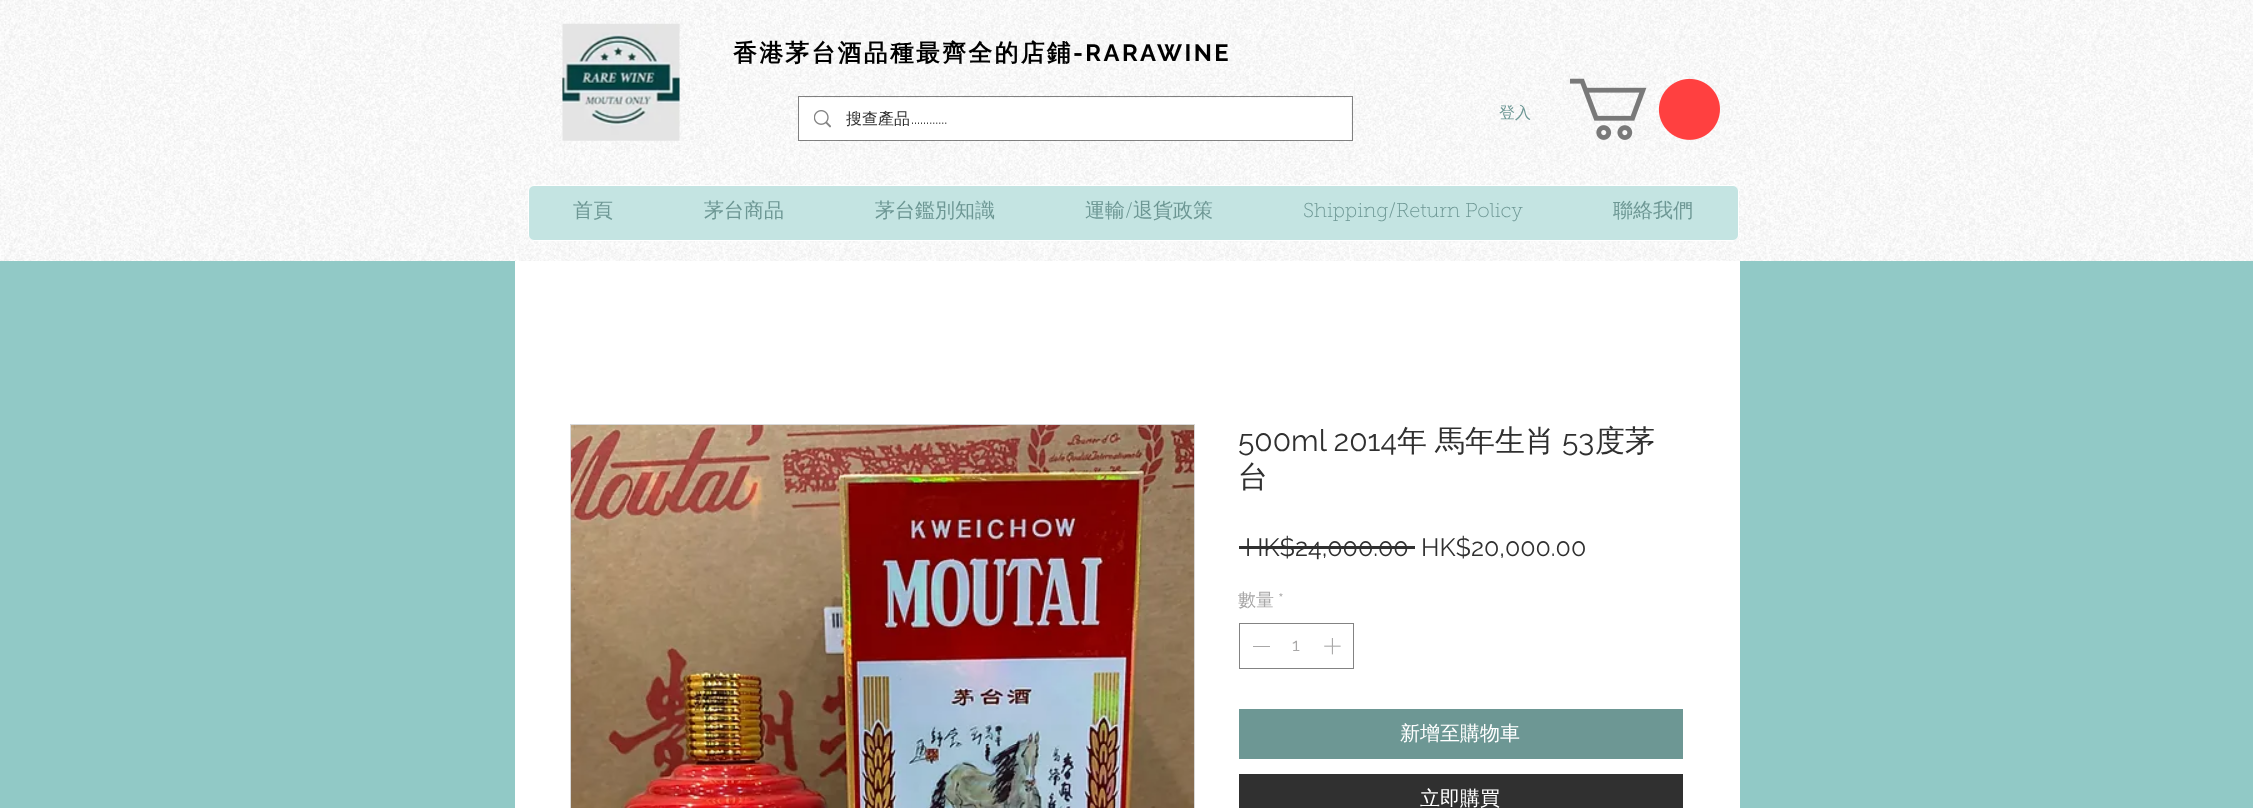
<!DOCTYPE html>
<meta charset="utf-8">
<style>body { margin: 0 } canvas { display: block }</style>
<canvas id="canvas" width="2253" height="808"></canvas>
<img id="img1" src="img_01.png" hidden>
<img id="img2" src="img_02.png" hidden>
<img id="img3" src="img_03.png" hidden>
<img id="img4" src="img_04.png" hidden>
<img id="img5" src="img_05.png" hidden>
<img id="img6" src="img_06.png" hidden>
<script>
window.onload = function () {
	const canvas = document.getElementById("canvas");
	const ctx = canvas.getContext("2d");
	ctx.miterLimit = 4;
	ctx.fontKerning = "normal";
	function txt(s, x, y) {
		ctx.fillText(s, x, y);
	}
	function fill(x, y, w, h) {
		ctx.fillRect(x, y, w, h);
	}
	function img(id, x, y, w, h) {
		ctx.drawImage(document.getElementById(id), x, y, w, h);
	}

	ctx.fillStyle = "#91C9C6";
	fill(0, 0, 2253, 808);
	ctx.fillStyle = "#FFFFFF";
	fill(0, 0, 2253, 261);
	img("img1", 0, 0, 2253, 261);
	img("img2", 562, 23, 118, 118);
	ctx.strokeStyle = "rgba(48, 48, 48, 0.6)";
	ctx.strokeRect(798.5, 96.5, 554, 44);
	fill(799, 98, 552, 42);
	img("img3", 814, 110, 17, 18);
	img("img4", 1570, 78, 150, 62);
	ctx.fillStyle = "#C4E4E2";
	ctx.beginPath();
	ctx.roundRect(528.5, 185.5, 1210, 55, 5.5);
	ctx.fill();
	ctx.strokeStyle = "#FFFFFF";
	ctx.stroke();
	ctx.fillStyle = "#FFFFFF";
	fill(515, 261, 1225, 547);
	ctx.strokeStyle = "#D8D8D8";
	ctx.strokeRect(570.5, 424.5, 624, 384);
	img("img5", 571, 425, 623, 383);
	ctx.fillStyle = "#303030";
	fill(1239, 546, 176, 3);
	ctx.strokeStyle = "#838383";
	ctx.strokeRect(1239.5, 623.5, 114, 45);
	ctx.fillStyle = "#A8A7A7";
	fill(1253, 646, 17, 1);
	img("img6", 1324, 638, 17, 17);
	ctx.fillStyle = "#6D9794";
	fill(1239, 709, 444, 50);
	ctx.fillStyle = "#303030";
	fill(1239, 774, 444, 34);
	ctx.letterSpacing = "2.4px";
	ctx.font = "bold 23.75px WenQuanYi Zen Hei";
	ctx.fillStyle = "#000000";
	txt("香港茅台酒品種最齊全的店鋪", 733, 61);
	ctx.font = "bold 23.75px Raleway";
	txt("-RARAWINE", 1073, 61);
	ctx.letterSpacing = "0px";
	ctx.font = "500 16px WenQuanYi Zen Hei";
	ctx.fillStyle = "#303030";
	txt("搜查產品", 846, 124);
	ctx.font = "16px Raleway";
	txt("............", 911, 124);
	ctx.font = "500 16px WenQuanYi Zen Hei";
	ctx.fillStyle = "#6D9794";
	txt("登入", 1499, 118);
	ctx.font = "500 20px WenQuanYi Zen Hei";
	txt("首頁", 573, 217);
	txt("茅台商品", 704, 217);
	txt("茅台鑑別知識", 875, 217);
	txt("運輸", 1085, 217);
	ctx.font = "100 20px 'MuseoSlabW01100'";
	txt("/", 1125, 217);
	ctx.font = "500 20px WenQuanYi Zen Hei";
	txt("退貨政策", 1133, 217);
	ctx.font = "100 20px 'MuseoSlabW01100'";
	txt("Shipping/Return Policy", 1303, 217);
	ctx.font = "500 20px WenQuanYi Zen Hei";
	txt("聯絡我們", 1613, 217);
	ctx.font = "30px Raleway";
	ctx.fillStyle = "#303030";
	txt("500ml 2014", 1238, 451);
	ctx.font = "500 30px WenQuanYi Zen Hei";
	txt("年", 1397, 451);
	txt("馬年生肖", 1435, 451);
	ctx.font = "30px Raleway";
	txt("53", 1562, 451);
	ctx.font = "500 30px WenQuanYi Zen Hei";
	txt("度茅", 1595, 451);
	txt("台", 1238, 487);
	ctx.font = "25px Raleway";
	txt("HK$24,000.00", 1245, 556);
	txt("HK$20,000.00", 1421, 556);
	ctx.font = "500 18px WenQuanYi Zen Hei";
	ctx.fillStyle = "#A8A7A7";
	txt("數量", 1238, 606);
	ctx.font = "18px Raleway";
	txt("*", 1278, 606);
	txt("1", 1292, 651);
	ctx.font = "500 20px WenQuanYi Zen Hei";
	ctx.fillStyle = "#FFFFFF";
	txt("新增至購物車", 1400, 740);
	txt("立即購買", 1420, 805);
};
</script>
